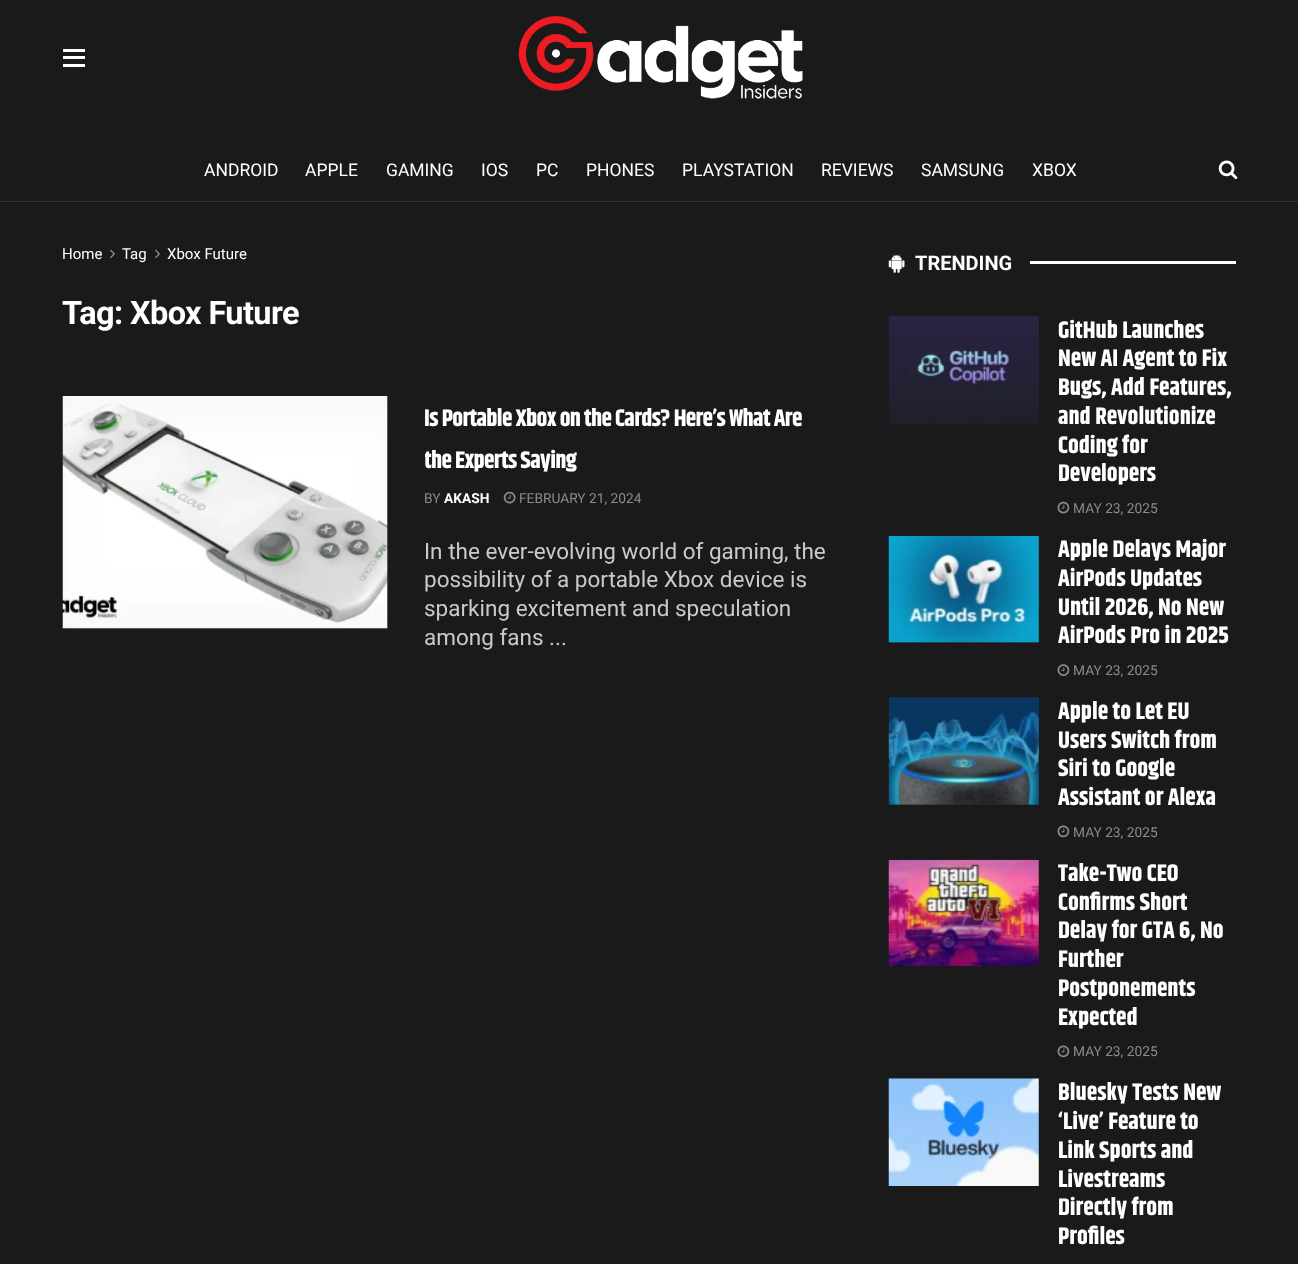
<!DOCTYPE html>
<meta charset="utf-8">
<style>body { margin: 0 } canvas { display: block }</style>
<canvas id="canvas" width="1298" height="1264"></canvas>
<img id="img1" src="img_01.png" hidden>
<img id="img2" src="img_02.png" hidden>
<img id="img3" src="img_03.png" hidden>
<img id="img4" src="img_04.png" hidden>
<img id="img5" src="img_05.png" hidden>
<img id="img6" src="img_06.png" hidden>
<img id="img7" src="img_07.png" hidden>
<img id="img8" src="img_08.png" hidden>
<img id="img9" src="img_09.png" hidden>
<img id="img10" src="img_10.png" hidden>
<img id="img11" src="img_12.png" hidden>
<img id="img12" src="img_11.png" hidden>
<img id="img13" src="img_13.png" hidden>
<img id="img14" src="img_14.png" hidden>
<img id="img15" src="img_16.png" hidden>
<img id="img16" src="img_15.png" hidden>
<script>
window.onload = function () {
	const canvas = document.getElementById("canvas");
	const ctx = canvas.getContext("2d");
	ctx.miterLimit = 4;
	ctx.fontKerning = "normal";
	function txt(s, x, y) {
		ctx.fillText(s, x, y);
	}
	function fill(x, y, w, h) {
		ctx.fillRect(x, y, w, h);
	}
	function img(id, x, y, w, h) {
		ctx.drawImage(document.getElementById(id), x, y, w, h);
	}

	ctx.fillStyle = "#1A1A1A";
	fill(0, 0, 1298, 1264);
	ctx.fillStyle = "#FFFFFF";
	fill(63, 49, 22, 3);
	fill(63, 56, 22, 3);
	fill(63, 64, 22, 3);
	img("img1", 518, 16, 285, 83);
	ctx.fillStyle = "#303030";
	fill(0, 201, 1298, 1);
	img("img2", 1218, 160, 20, 20);
	img("img3", 110, 249, 5, 9);
	img("img3", 155, 249, 5, 9);
	ctx.fillStyle = "#282828";
	fill(63, 396, 325, 233);
	img("img4", 62, 396, 326, 233);
	img("img5", 503, 491, 13, 13);
	img("img6", 888, 254, 17, 19);
	ctx.fillStyle = "#FFFFFF";
	fill(1030, 261, 206, 3);
	ctx.fillStyle = "#282828";
	fill(889, 316, 150, 108);
	img("img7", 888, 316, 151, 108);
	img("img8", 1057, 501, 13, 13);
	fill(889, 536, 150, 107);
	img("img9", 888, 536, 151, 107);
	img("img10", 1057, 664, 13, 12);
	fill(889, 698, 150, 107);
	img("img11", 889, 697, 150, 1);
	img("img12", 888, 697, 151, 108);
	img("img13", 1057, 825, 13, 13);
	img("img14", 888, 859, 151, 107);
	img("img13", 1057, 1045, 13, 13);
	img("img15", 889, 1078, 150, 1);
	img("img16", 888, 1078, 151, 108);
	ctx.font = "17.5px Roboto";
	ctx.fillStyle = "#FFFFFF";
	txt("ANDROID", 204, 176);
	txt("APPLE", 305, 176);
	txt("GAMING", 386, 176);
	txt("IOS", 481, 176);
	txt("PC", 536, 176);
	txt("PHONES", 586, 176);
	txt("PLAYSTATION", 682, 176);
	txt("REVIEWS", 821, 176);
	txt("SAMSUNG", 921, 176);
	txt("XBOX", 1032, 176);
	ctx.font = "15px Roboto";
	txt("Home", 62, 259);
	txt("Tag", 122, 259);
	txt("Xbox Future", 167, 259);
	ctx.letterSpacing = "-0.6px";
	ctx.font = "bold 32.5px Roboto";
	txt("Tag: Xbox Future", 62, 324);
	ctx.letterSpacing = "-0.65px";
	ctx.font = "bold 24px Khand";
	txt("Is Portable Xbox on the Cards? Here’s What Are", 424, 426);
	ctx.save();
	ctx.beginPath();
	ctx.rect(425, 396, 408, 83);
	ctx.clip();
	txt("the Experts Saying", 424, 468);
	ctx.restore();
	ctx.letterSpacing = "0px";
	ctx.font = "13.75px Roboto";
	ctx.fillStyle = "#8B8B8B";
	txt("BY", 424, 503);
	ctx.font = "bold 13.75px Roboto";
	ctx.fillStyle = "#FFFFFF";
	txt("AKASH", 444, 503);
	ctx.font = "13.75px Roboto";
	ctx.fillStyle = "#8B8B8B";
	txt("FEBRUARY 21, 2024", 519, 503);
	ctx.font = "22.5px Roboto";
	ctx.fillStyle = "#CACACA";
	txt("In the ever-evolving world of gaming, the", 424, 559);
	txt("possibility of a portable Xbox device is", 424, 587);
	txt("sparking excitement and speculation", 424, 616);
	txt("among fans ...", 424, 645);
	ctx.font = "bold 20px Roboto";
	ctx.fillStyle = "#FFFFFF";
	txt("TRENDING", 915, 270);
	ctx.font = "bold 24px Khand";
	txt("GitHub Launches", 1058, 338);
	txt("New AI Agent to Fix", 1058, 366);
	txt("Bugs, Add Features,", 1058, 395);
	txt("and Revolutionize", 1058, 424);
	txt("Coding for", 1058, 453);
	txt("Developers", 1058, 481);
	ctx.font = "13.75px Roboto";
	ctx.fillStyle = "#8B8B8B";
	txt("MAY 23, 2025", 1073, 513);
	ctx.font = "bold 24px Khand";
	ctx.fillStyle = "#FFFFFF";
	txt("Apple Delays Major", 1058, 557);
	txt("AirPods Updates", 1058, 586);
	txt("Until 2026, No New", 1058, 615);
	txt("AirPods Pro in 2025", 1058, 643);
	ctx.font = "13.75px Roboto";
	ctx.fillStyle = "#8B8B8B";
	txt("MAY 23, 2025", 1073, 675);
	ctx.font = "bold 24px Khand";
	ctx.fillStyle = "#FFFFFF";
	txt("Apple to Let EU", 1058, 719);
	txt("Users Switch from", 1058, 748);
	txt("Siri to Google", 1058, 776);
	txt("Assistant or Alexa", 1058, 805);
	ctx.font = "13.75px Roboto";
	ctx.fillStyle = "#8B8B8B";
	txt("MAY 23, 2025", 1073, 837);
	ctx.font = "bold 24px Khand";
	ctx.fillStyle = "#FFFFFF";
	txt("Take-Two CEO", 1058, 881);
	txt("Confirms Short", 1058, 910);
	txt("Delay for GTA 6, No", 1058, 938);
	txt("Further", 1058, 967);
	txt("Postponements", 1058, 996);
	txt("Expected", 1058, 1025);
	ctx.font = "13.75px Roboto";
	ctx.fillStyle = "#8B8B8B";
	txt("MAY 23, 2025", 1073, 1056);
	ctx.font = "bold 24px Khand";
	ctx.fillStyle = "#FFFFFF";
	txt("Bluesky Tests New", 1058, 1100);
	txt("‘Live’ Feature to", 1058, 1129);
	txt("Link Sports and", 1058, 1158);
	txt("Livestreams", 1058, 1187);
	txt("Directly from", 1058, 1215);
	txt("Profiles", 1058, 1244);
};
</script>
